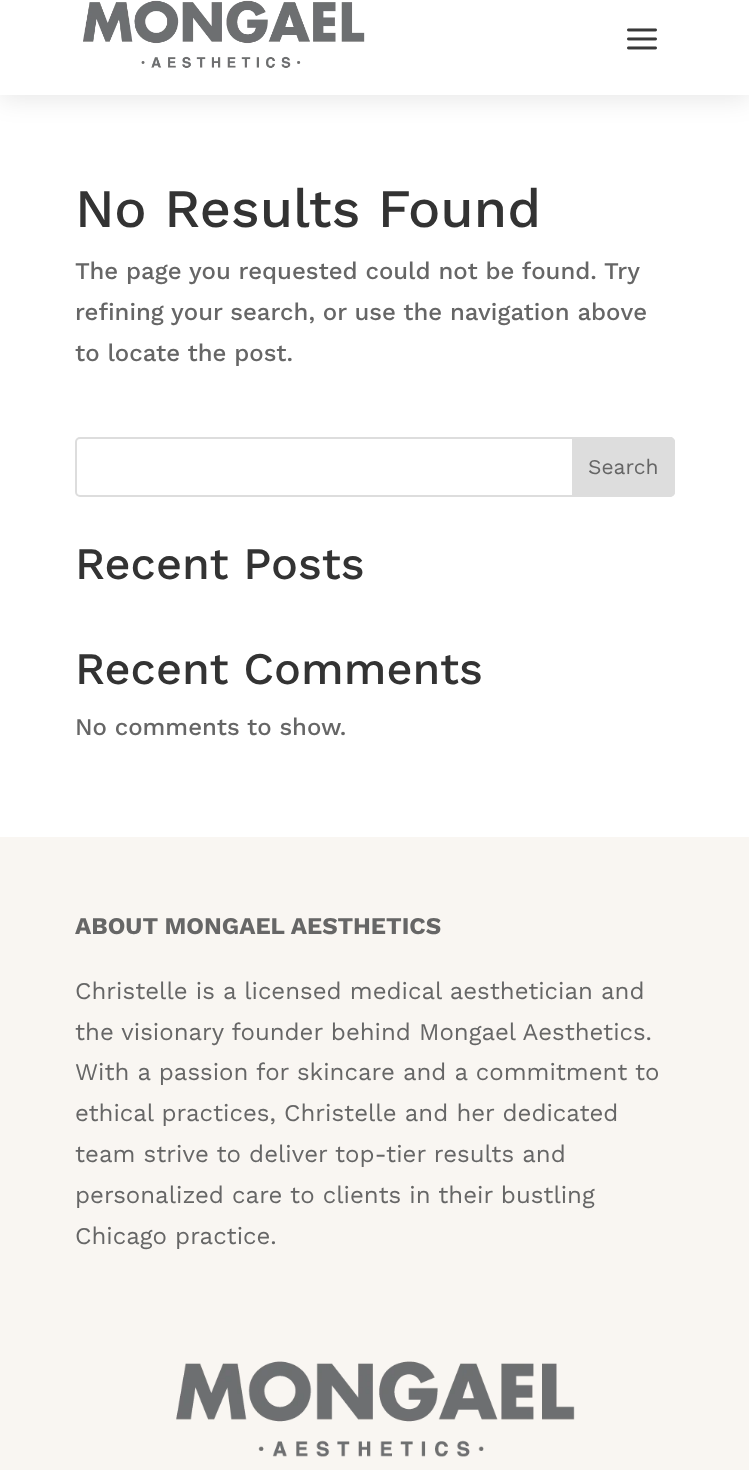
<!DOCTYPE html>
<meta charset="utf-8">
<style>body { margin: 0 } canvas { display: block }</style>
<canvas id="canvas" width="749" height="1470"></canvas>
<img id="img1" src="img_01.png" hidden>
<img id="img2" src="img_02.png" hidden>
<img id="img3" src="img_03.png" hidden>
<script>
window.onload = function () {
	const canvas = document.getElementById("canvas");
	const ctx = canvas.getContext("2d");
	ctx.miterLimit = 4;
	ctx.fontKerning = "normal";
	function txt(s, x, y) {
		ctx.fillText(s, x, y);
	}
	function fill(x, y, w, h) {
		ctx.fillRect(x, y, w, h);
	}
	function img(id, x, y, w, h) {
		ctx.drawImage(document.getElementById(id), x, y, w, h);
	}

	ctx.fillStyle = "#FFFFFF";
	fill(0, 0, 749, 1470);
	ctx.fillStyle = "rgba(0, 0, 0, 0.1)";
	ctx.filter = "blur(13.5px)";
	ctx.beginPath();
	ctx.rect(0, -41, 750, 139);
	ctx.fill();
	ctx.filter = "none";
	ctx.fillStyle = "#FFFFFF";
	fill(0, 0, 749, 95);
	img("img1", 83, 0, 282, 68);
	img("img2", 627, 28, 30, 22);
	ctx.beginPath();
	ctx.roundRect(76, 438, 598, 58, 4);
	ctx.strokeStyle = "#DDDDDD";
	ctx.lineWidth = 2;
	ctx.stroke();
	ctx.fillStyle = "#DDDDDD";
	ctx.beginPath();
	ctx.roundRect(573, 438, 101, 58, [0, 4, 4, 0]);
	ctx.fill();
	ctx.stroke();
	ctx.fillStyle = "#F9F6F2";
	fill(0, 837, 749, 633);
	img("img3", 176, 1361, 399, 96);
	ctx.font = "500 54px Work Sans";
	ctx.fillStyle = "#333333";
	txt("No Results Found", 75, 227);
	ctx.font = "500 24px Work Sans";
	ctx.fillStyle = "#666666";
	txt("The page you requested could not be found. Try", 75, 279);
	txt("refining your search, or use the navigation above", 75, 320);
	txt("to locate the post.", 75, 361);
	ctx.font = "21px Work Sans";
	txt("Search", 588, 474);
	ctx.font = "500 45px Work Sans";
	ctx.fillStyle = "#333333";
	txt("Recent Posts", 75, 579);
	txt("Recent Comments", 75, 684);
	ctx.font = "500 24px Work Sans";
	ctx.fillStyle = "#666666";
	txt("No comments to show.", 75, 735);
	ctx.font = "bold 24px Work Sans";
	txt("ABOUT MONGAEL AESTHETICS", 75, 934);
	ctx.font = "24px Work Sans";
	txt("Christelle is a licensed medical aesthetician and", 75, 999);
	txt("the visionary founder behind Mongael Aesthetics.", 75, 1040);
	txt("With a passion for skincare and a commitment to", 75, 1080);
	txt("ethical practices, Christelle and her dedicated", 75, 1121);
	txt("team strive to deliver top-tier results and", 75, 1162);
	txt("personalized care to clients in their bustling", 75, 1203);
	txt("Chicago practice.", 75, 1244);
};
</script>
